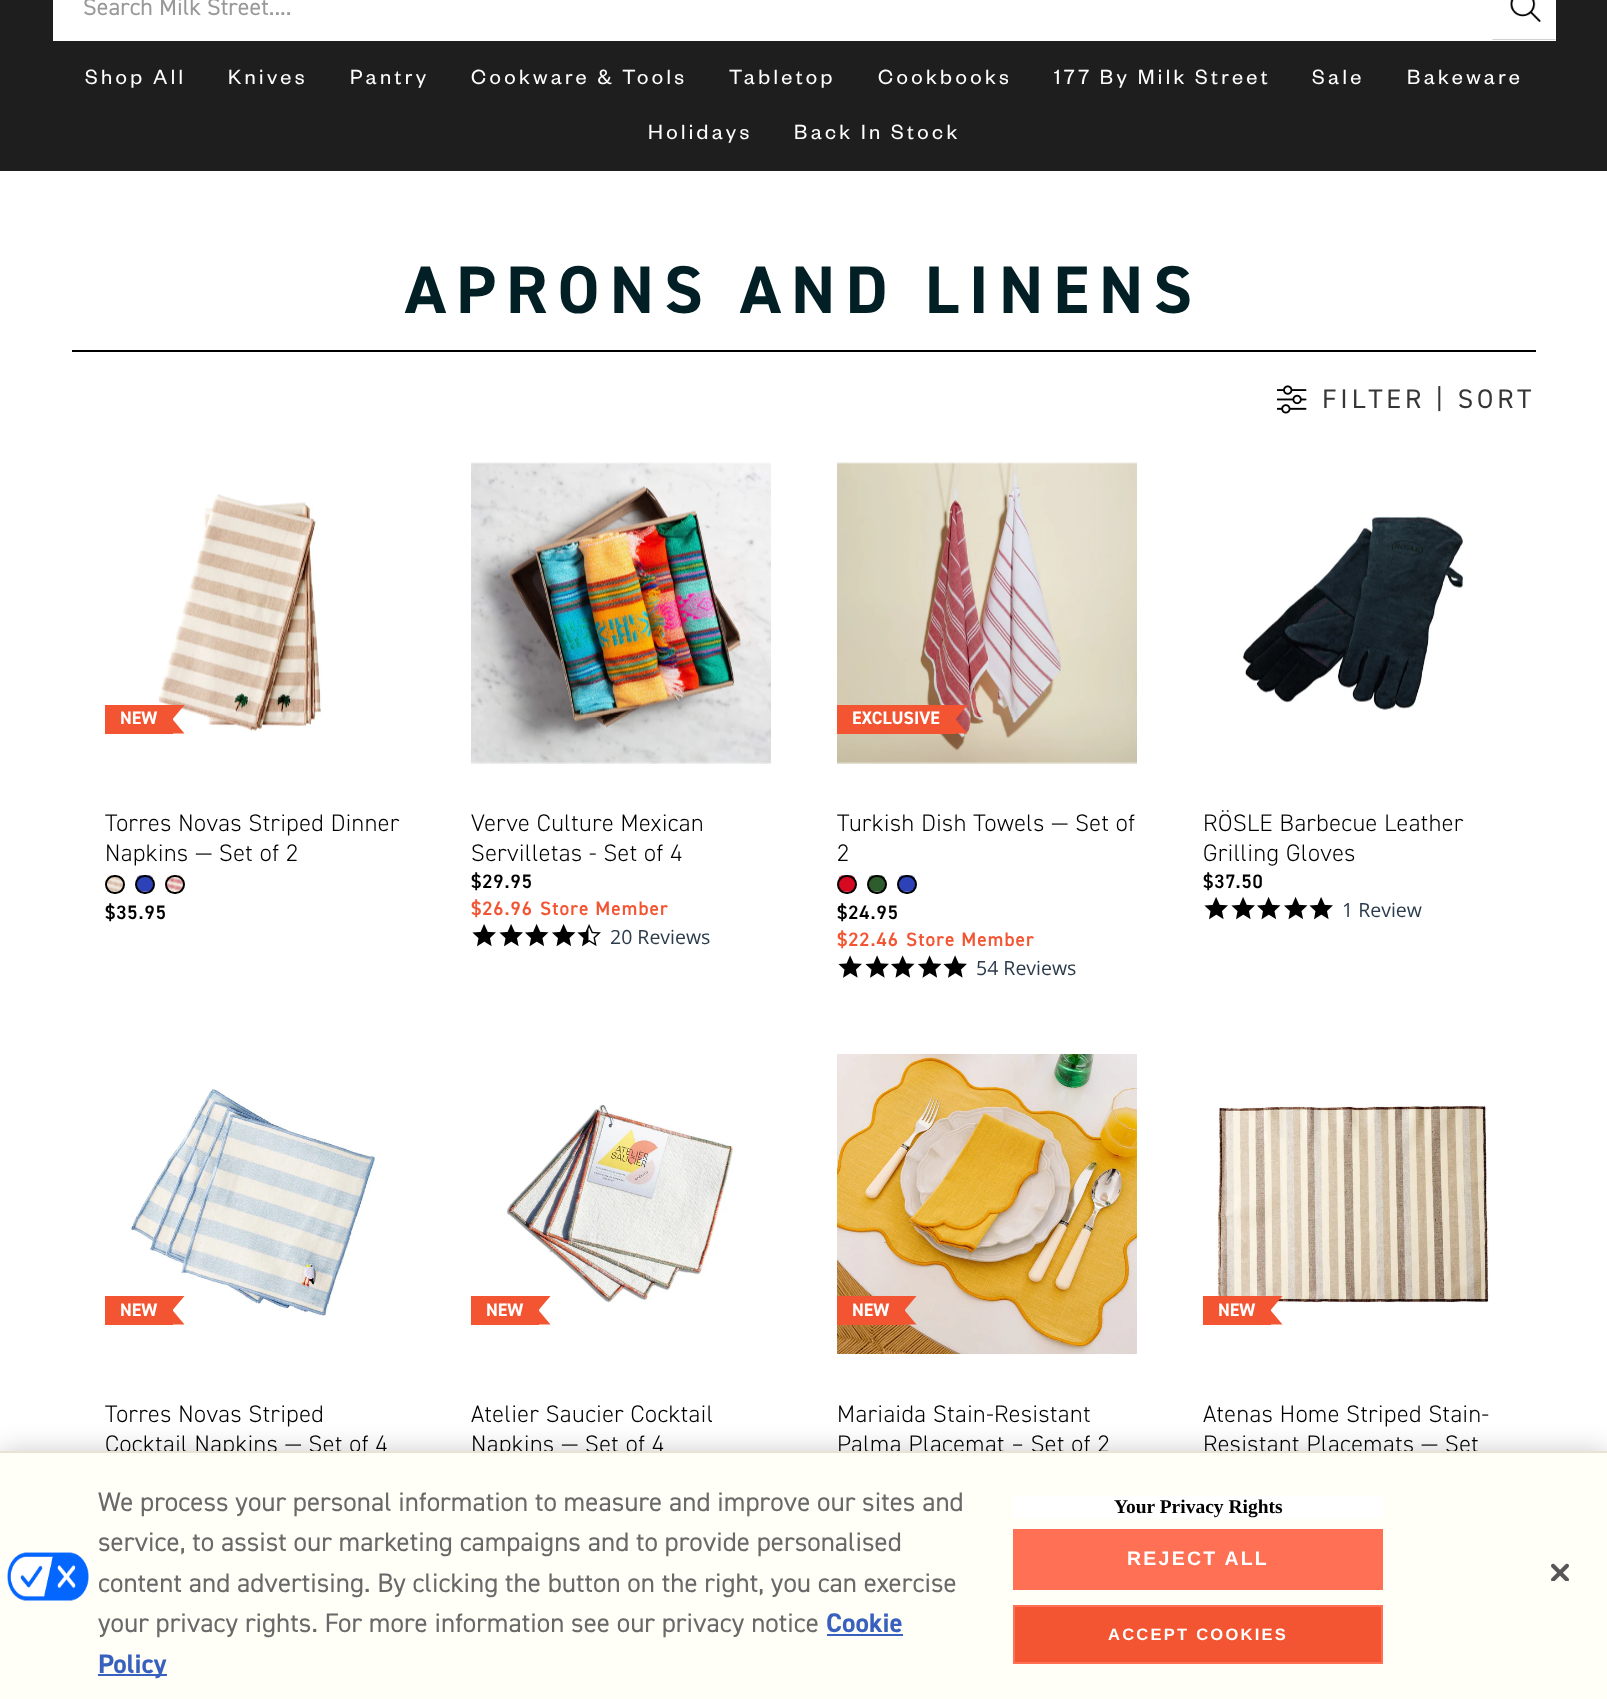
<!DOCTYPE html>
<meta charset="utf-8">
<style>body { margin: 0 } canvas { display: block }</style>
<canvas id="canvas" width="1607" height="1699"></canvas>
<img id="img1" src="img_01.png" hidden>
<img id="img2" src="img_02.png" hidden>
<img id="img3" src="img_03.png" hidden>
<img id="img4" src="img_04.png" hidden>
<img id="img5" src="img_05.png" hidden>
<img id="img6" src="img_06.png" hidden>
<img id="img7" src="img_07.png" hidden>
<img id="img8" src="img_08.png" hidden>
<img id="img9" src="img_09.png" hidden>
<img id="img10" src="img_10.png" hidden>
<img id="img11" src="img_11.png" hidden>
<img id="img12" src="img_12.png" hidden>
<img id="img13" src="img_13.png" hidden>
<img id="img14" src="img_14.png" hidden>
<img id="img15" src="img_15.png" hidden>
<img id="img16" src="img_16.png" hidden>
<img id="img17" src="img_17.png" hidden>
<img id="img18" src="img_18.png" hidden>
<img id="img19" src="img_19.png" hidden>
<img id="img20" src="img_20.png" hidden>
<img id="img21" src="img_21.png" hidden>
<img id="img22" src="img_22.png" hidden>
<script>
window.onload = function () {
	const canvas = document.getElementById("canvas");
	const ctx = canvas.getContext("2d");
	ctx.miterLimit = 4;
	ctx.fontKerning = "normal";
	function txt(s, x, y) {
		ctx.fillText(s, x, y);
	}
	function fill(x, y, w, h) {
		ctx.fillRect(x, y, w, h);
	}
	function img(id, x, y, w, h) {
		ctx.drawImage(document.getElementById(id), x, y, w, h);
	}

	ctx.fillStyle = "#FFFFFF";
	fill(0, 0, 1607, 1699);
	ctx.fillStyle = "#1E1E1E";
	fill(0, 0, 1607, 171);
	ctx.fillStyle = "#FFFFFF";
	fill(53, 0, 1503, 41);
	img("img1", 1492, 0, 64, 40);
	ctx.fillStyle = "#000000";
	fill(72, 350, 1464, 2);
	img("img2", 1277, 385, 30, 29);
	img("img3", 158, 494, 164, 238);
	ctx.fillStyle = "#F35533";
	fill(105, 705, 68, 29);
	ctx.beginPath();
	ctx.moveTo(160.5, 733.5);
	ctx.lineTo(160.5, 705);
	ctx.lineTo(184.5, 733.5);
	ctx.closePath();
	ctx.fill();
	ctx.beginPath();
	ctx.moveTo(160.5, 705);
	ctx.lineTo(184.5, 705);
	ctx.lineTo(160.5, 733.5);
	ctx.closePath();
	ctx.fill();
	img("img4", 106, 875, 19, 18);
	ctx.beginPath();
	ctx.roundRect(106, 876, 18, 17, 8.5);
	ctx.strokeStyle = "#000000";
	ctx.lineWidth = 2;
	ctx.stroke();
	img("img5", 136, 875, 17, 18);
	ctx.beginPath();
	ctx.roundRect(136, 876, 18, 17, 8.5);
	ctx.stroke();
	img("img6", 166, 875, 19, 18);
	ctx.beginPath();
	ctx.roundRect(166, 876, 18, 17, 8.5);
	ctx.stroke();
	img("img7", 471, 462, 300, 302);
	img("img8", 472, 924, 24, 23);
	img("img8", 499, 924, 24, 23);
	img("img9", 525, 924, 24, 23);
	img("img9", 552, 924, 24, 23);
	img("img10", 577, 924, 24, 23);
	img("img11", 837, 462, 300, 302);
	fill(837, 705, 119, 29);
	ctx.beginPath();
	ctx.moveTo(943.5, 733.5);
	ctx.lineTo(943.5, 705);
	ctx.lineTo(967.5, 733.5);
	ctx.closePath();
	ctx.fill();
	ctx.beginPath();
	ctx.moveTo(943.5, 705);
	ctx.lineTo(967.5, 705);
	ctx.lineTo(943.5, 733.5);
	ctx.closePath();
	ctx.fill();
	img("img12", 838, 875, 17, 18);
	ctx.beginPath();
	ctx.roundRect(838, 876, 18, 17, 8.5);
	ctx.stroke();
	img("img13", 868, 875, 17, 18);
	ctx.beginPath();
	ctx.roundRect(868, 876, 18, 17, 8.5);
	ctx.stroke();
	img("img5", 898, 875, 17, 18);
	ctx.beginPath();
	ctx.roundRect(898, 876, 18, 17, 8.5);
	ctx.stroke();
	img("img14", 838, 955, 24, 23);
	img("img14", 865, 955, 24, 23);
	img("img15", 891, 955, 24, 23);
	img("img15", 918, 955, 24, 23);
	img("img14", 943, 955, 24, 23);
	img("img16", 1243, 516, 221, 194);
	img("img8", 1204, 897, 24, 23);
	img("img8", 1231, 897, 24, 23);
	img("img9", 1257, 897, 24, 23);
	img("img9", 1284, 897, 24, 23);
	img("img8", 1309, 897, 24, 23);
	img("img17", 130, 1089, 245, 227);
	fill(105, 1296, 68, 29);
	ctx.beginPath();
	ctx.moveTo(160.5, 1324.5);
	ctx.lineTo(160.5, 1296);
	ctx.lineTo(184.5, 1324.5);
	ctx.closePath();
	ctx.fill();
	ctx.beginPath();
	ctx.moveTo(160.5, 1296);
	ctx.lineTo(184.5, 1296);
	ctx.lineTo(160.5, 1324.5);
	ctx.closePath();
	ctx.fill();
	img("img18", 506, 1104, 228, 199);
	fill(471, 1296, 68, 29);
	ctx.beginPath();
	ctx.moveTo(526.5, 1324.5);
	ctx.lineTo(526.5, 1296);
	ctx.lineTo(550.5, 1324.5);
	ctx.closePath();
	ctx.fill();
	ctx.beginPath();
	ctx.moveTo(526.5, 1296);
	ctx.lineTo(550.5, 1296);
	ctx.lineTo(526.5, 1324.5);
	ctx.closePath();
	ctx.fill();
	img("img19", 837, 1054, 300, 300);
	fill(837, 1296, 68, 29);
	ctx.beginPath();
	ctx.moveTo(892.5, 1324.5);
	ctx.lineTo(892.5, 1296);
	ctx.lineTo(916.5, 1324.5);
	ctx.closePath();
	ctx.fill();
	ctx.beginPath();
	ctx.moveTo(892.5, 1296);
	ctx.lineTo(916.5, 1296);
	ctx.lineTo(892.5, 1324.5);
	ctx.closePath();
	ctx.fill();
	img("img20", 1216, 1105, 274, 198);
	fill(1203, 1296, 68, 29);
	ctx.beginPath();
	ctx.moveTo(1258.5, 1324.5);
	ctx.lineTo(1258.5, 1296);
	ctx.lineTo(1282.5, 1324.5);
	ctx.closePath();
	ctx.fill();
	ctx.beginPath();
	ctx.moveTo(1258.5, 1296);
	ctx.lineTo(1282.5, 1296);
	ctx.lineTo(1258.5, 1324.5);
	ctx.closePath();
	ctx.fill();
	ctx.fillStyle = "rgba(0, 0, 0, 0.2)";
	ctx.filter = "blur(13.5px)";
	ctx.beginPath();
	ctx.rect(0, 1451, 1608, 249);
	ctx.fill();
	ctx.filter = "none";
	ctx.font = "24px 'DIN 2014'";
	ctx.fillStyle = "#999999";
	txt("Search Milk Street....", 83, 15);
	ctx.letterSpacing = "3.4px";
	ctx.font = "22.5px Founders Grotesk";
	ctx.fillStyle = "#FFFFFF";
	txt("Shop All", 85, 84);
	txt("Knives", 228, 84);
	txt("Pantry", 350, 84);
	txt("Cookware & Tools", 471, 84);
	txt("Tabletop", 729, 84);
	txt("Cookbooks", 878, 84);
	txt("177 By Milk Street", 1054, 84);
	txt("Sale", 1312, 84);
	txt("Bakeware", 1407, 84);
	txt("Holidays", 648, 139);
	txt("Back In Stock", 794, 139);
	ctx.letterSpacing = "10.1px";
	ctx.font = "bold 67.5px 'DIN 2014'";
	ctx.fillStyle = "#021F25";
	txt("APRONS AND LINENS", 405, 313);
	ctx.letterSpacing = "4px";
	ctx.font = "27px 'DIN 2014'";
	ctx.fillStyle = "#363636";
	txt("FILTER | SORT", 1322, 408);
	ctx.letterSpacing = "0px";
	ctx.font = "bold 18px 'DIN 2014'";
	ctx.fillStyle = "#FFFFFF";
	txt("NEW", 120, 724);
	ctx.letterSpacing = "0.5px";
	ctx.font = "300 24px 'DIN 2014'";
	ctx.fillStyle = "#000000";
	txt("Torres Novas Striped Dinner", 105, 831);
	txt("Napkins — Set of 2", 105, 861);
	ctx.letterSpacing = "1px";
	ctx.font = "600 19.5px 'DIN 2014'";
	txt("$35.95", 105, 919);
	ctx.letterSpacing = "0.5px";
	ctx.font = "300 24px 'DIN 2014'";
	txt("Verve Culture Mexican", 471, 831);
	txt("Servilletas - Set of 4", 471, 861);
	ctx.letterSpacing = "1px";
	ctx.font = "600 19.5px 'DIN 2014'";
	txt("$29.95", 471, 888);
	ctx.fillStyle = "#F35533";
	txt("$26.96", 471, 915);
	txt("Store Member", 540, 915);
	ctx.letterSpacing = "0px";
	ctx.font = "19.5px Open Sans";
	ctx.fillStyle = "#2C3B4B";
	txt("20 Reviews", 610, 944);
	ctx.font = "bold 18px 'DIN 2014'";
	ctx.fillStyle = "#FFFFFF";
	txt("EXCLUSIVE", 852, 724);
	ctx.letterSpacing = "0.5px";
	ctx.font = "300 24px 'DIN 2014'";
	ctx.fillStyle = "#000000";
	txt("Turkish Dish Towels — Set of", 837, 831);
	txt("2", 837, 861);
	ctx.letterSpacing = "1px";
	ctx.font = "600 19.5px 'DIN 2014'";
	txt("$24.95", 837, 919);
	ctx.fillStyle = "#F35533";
	txt("$22.46", 837, 946);
	txt("Store Member", 906, 946);
	ctx.letterSpacing = "0px";
	ctx.font = "19.5px Open Sans";
	ctx.fillStyle = "#2C3B4B";
	txt("54 Reviews", 976, 975);
	ctx.letterSpacing = "0.5px";
	ctx.font = "300 24px 'DIN 2014'";
	ctx.fillStyle = "#000000";
	txt("RÖSLE Barbecue Leather", 1203, 831);
	txt("Grilling Gloves", 1203, 861);
	ctx.letterSpacing = "1px";
	ctx.font = "600 19.5px 'DIN 2014'";
	txt("$37.50", 1203, 888);
	ctx.letterSpacing = "0px";
	ctx.font = "19.5px Open Sans";
	ctx.fillStyle = "#2C3B4B";
	txt("1 Review", 1342, 917);
	ctx.font = "bold 18px 'DIN 2014'";
	ctx.fillStyle = "#FFFFFF";
	txt("NEW", 120, 1316);
	ctx.letterSpacing = "0.5px";
	ctx.font = "300 24px 'DIN 2014'";
	ctx.fillStyle = "#000000";
	txt("Torres Novas Striped", 105, 1422);
	txt("Cocktail Napkins — Set of 4", 105, 1452);
	ctx.letterSpacing = "0px";
	ctx.font = "bold 18px 'DIN 2014'";
	ctx.fillStyle = "#FFFFFF";
	txt("NEW", 486, 1316);
	ctx.letterSpacing = "0.5px";
	ctx.font = "300 24px 'DIN 2014'";
	ctx.fillStyle = "#000000";
	txt("Atelier Saucier Cocktail", 471, 1422);
	txt("Napkins — Set of 4", 471, 1452);
	ctx.letterSpacing = "0px";
	ctx.font = "bold 18px 'DIN 2014'";
	ctx.fillStyle = "#FFFFFF";
	txt("NEW", 852, 1316);
	ctx.letterSpacing = "0.5px";
	ctx.font = "300 24px 'DIN 2014'";
	ctx.fillStyle = "#000000";
	txt("Mariaida Stain-Resistant", 837, 1422);
	txt("Palma Placemat – Set of 2", 837, 1452);
	ctx.letterSpacing = "0px";
	ctx.font = "bold 18px 'DIN 2014'";
	ctx.fillStyle = "#FFFFFF";
	txt("NEW", 1218, 1316);
	ctx.letterSpacing = "0.5px";
	ctx.font = "300 24px 'DIN 2014'";
	ctx.fillStyle = "#000000";
	txt("Atenas Home Striped Stain-", 1203, 1422);
	txt("Resistant Placemats — Set", 1203, 1452);
	ctx.fillStyle = "#FFFEF7";
	fill(0, 1453, 1607, 246);
	ctx.fillStyle = "#E7E4D3";
	fill(0, 1451, 1607, 2);
	img("img21", 7, 1552, 82, 49);
	ctx.letterSpacing = "0px";
	ctx.font = "27px 'DIN 2014'";
	ctx.fillStyle = "#696969";
	txt("We process your personal information to measure and improve our sites and", 98, 1511);
	txt("service, to assist our marketing campaigns and to provide personalised", 98, 1551);
	txt("content and advertising. By clicking the button on the right, you can exercise", 98, 1592);
	txt("your privacy rights. For more information see our privacy notice", 98, 1632);
	ctx.font = "bold 27px 'DIN 2014'";
	ctx.fillStyle = "#3860BE";
	txt("Cookie", 826, 1632);
	fill(827, 1634, 76, 2);
	fill(98, 1674, 69, 2);
	txt("Policy", 98, 1673);
	ctx.fillStyle = "#FFFFFF";
	fill(1013, 1496, 370, 22);
	ctx.font = "bold 19.5px Liberation Serif";
	ctx.fillStyle = "#000000";
	txt("Your Privacy Rights", 1114, 1513);
	ctx.fillStyle = "#FF7055";
	fill(1013, 1529, 370, 61);
	ctx.letterSpacing = "2.25px";
	ctx.font = "bold 19.5px Liberation Sans";
	ctx.fillStyle = "#FFFFFF";
	txt("REJECT ALL", 1127, 1565);
	ctx.fillStyle = "#F35533";
	ctx.beginPath();
	ctx.rect(1014, 1606, 368, 57);
	ctx.fill();
	ctx.strokeStyle = "#FF7055";
	ctx.stroke();
	ctx.font = "bold 16.5px Liberation Sans";
	ctx.fillStyle = "#FFFFFF";
	txt("ACCEPT COOKIES", 1108, 1640);
	img("img22", 1551, 1563, 18, 18);
};
</script>
